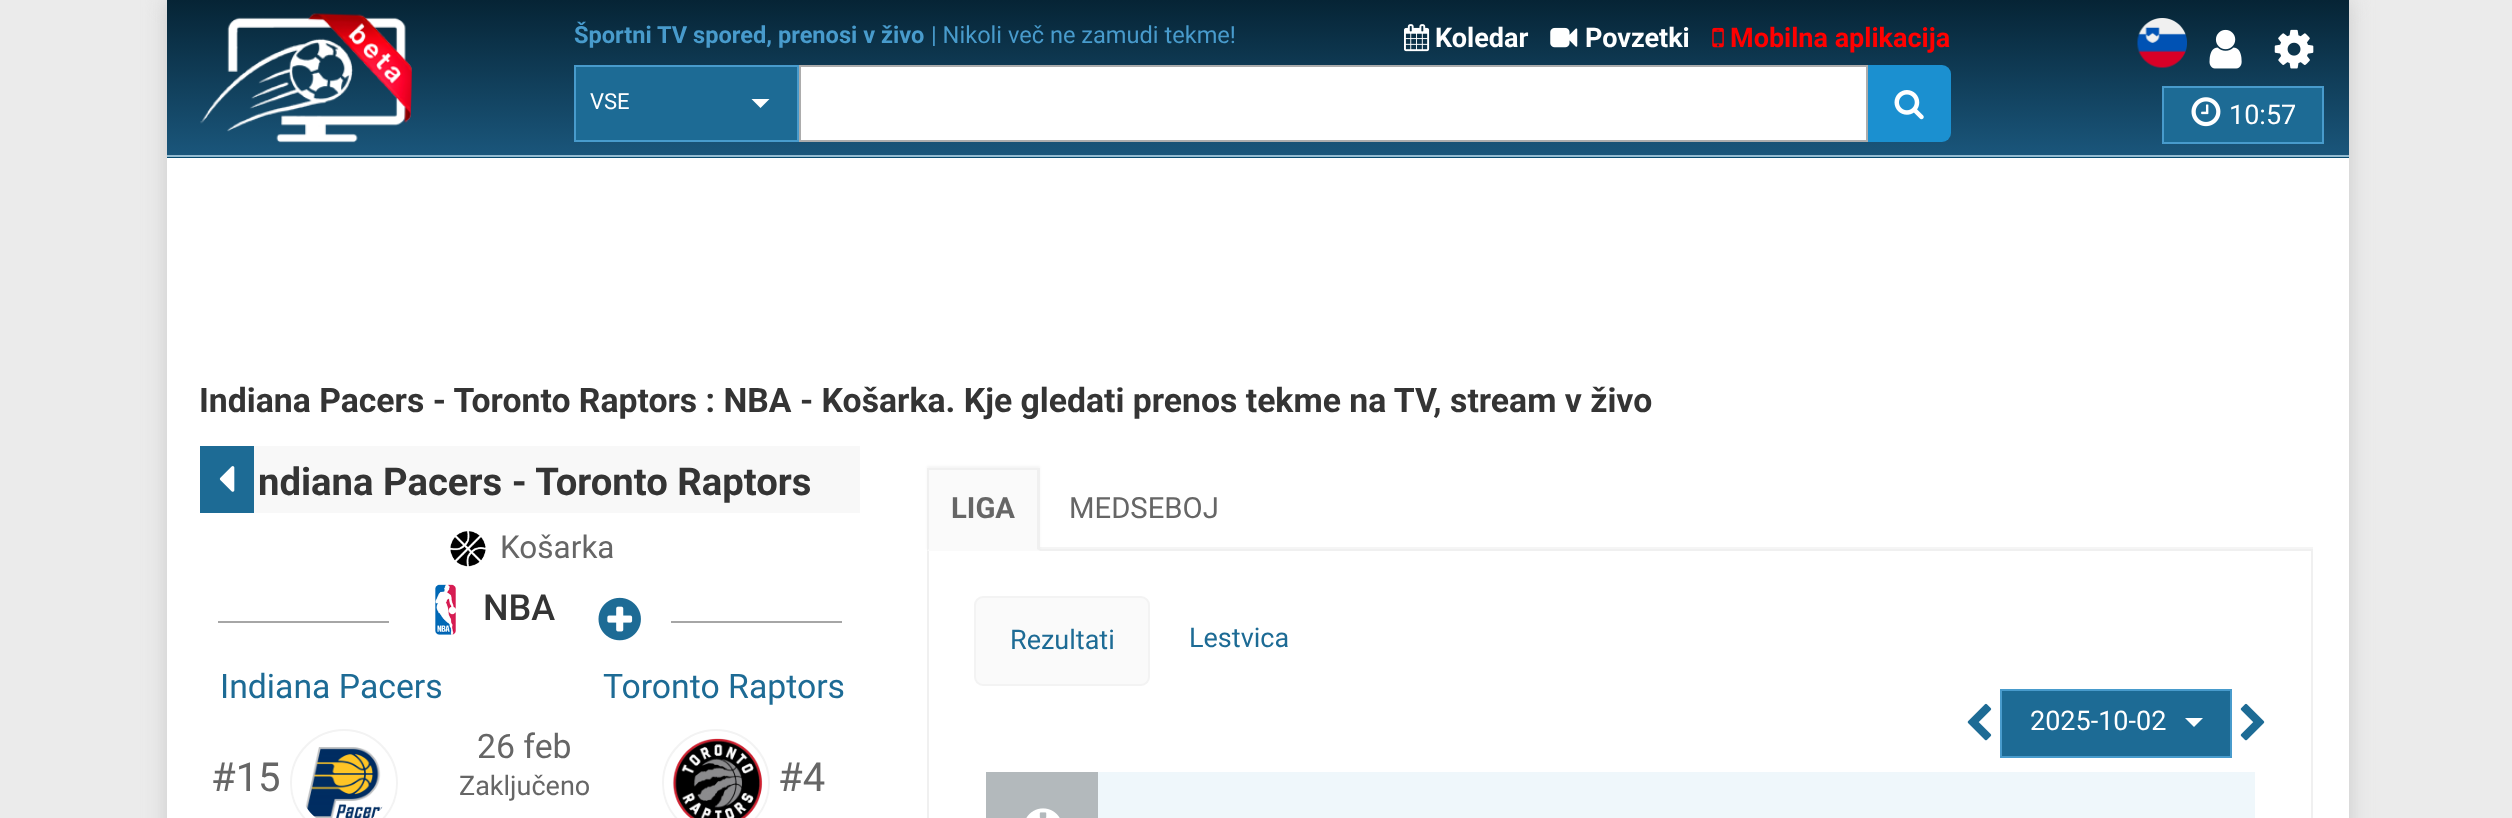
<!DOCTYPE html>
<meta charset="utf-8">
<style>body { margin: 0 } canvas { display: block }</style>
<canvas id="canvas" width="2512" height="818"></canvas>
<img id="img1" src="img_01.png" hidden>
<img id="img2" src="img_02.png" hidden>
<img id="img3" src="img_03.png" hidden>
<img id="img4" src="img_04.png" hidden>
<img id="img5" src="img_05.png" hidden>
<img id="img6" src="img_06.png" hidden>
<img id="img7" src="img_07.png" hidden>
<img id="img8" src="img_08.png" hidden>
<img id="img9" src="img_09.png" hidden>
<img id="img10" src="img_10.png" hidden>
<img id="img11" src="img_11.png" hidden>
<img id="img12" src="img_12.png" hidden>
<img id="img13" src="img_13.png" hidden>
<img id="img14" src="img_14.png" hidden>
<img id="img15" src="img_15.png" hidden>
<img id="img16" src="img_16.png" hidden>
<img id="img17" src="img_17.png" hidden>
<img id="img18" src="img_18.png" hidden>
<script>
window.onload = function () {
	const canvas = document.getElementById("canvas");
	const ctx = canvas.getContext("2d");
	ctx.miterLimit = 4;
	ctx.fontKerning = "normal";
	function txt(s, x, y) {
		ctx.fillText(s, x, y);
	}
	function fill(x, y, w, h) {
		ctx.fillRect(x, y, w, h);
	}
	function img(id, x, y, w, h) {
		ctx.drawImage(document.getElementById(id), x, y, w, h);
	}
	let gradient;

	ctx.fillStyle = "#EBEBEB";
	fill(0, 0, 2512, 818);
	ctx.fillStyle = "#CACACA";
	ctx.filter = "blur(11px)";
	ctx.beginPath();
	ctx.rect(167, 0, 2182, 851);
	ctx.fill();
	ctx.filter = "none";
	ctx.fillStyle = "#FFFFFF";
	fill(167, 158, 2182, 660);
	gradient = ctx.createLinearGradient(1258, 155, 1258, 311);
	gradient.addColorStop(0, "#074B6F");
	gradient.addColorStop(1, "#1D6B95");
	ctx.fillStyle = gradient;
	fill(167, 157, 2182, 1);
	ctx.fillStyle = "#94BCD1";
	fill(167, 155, 2182, 2);
	gradient = ctx.createLinearGradient(1258, 0, 1258, 155);
	gradient.addColorStop(0, "#062435");
	gradient.addColorStop(1, "#1A567B");
	ctx.fillStyle = gradient;
	fill(167, 0, 2182, 155);
	img("img1", 200, 13, 212, 130);
	img("img2", 1404, 24, 26, 28);
	img("img3", 1550, 27, 28, 21);
	img("img4", 1712, 27, 12, 21);
	ctx.fillStyle = "#1D6B95";
	ctx.beginPath();
	ctx.rect(575, 66, 223, 75);
	ctx.fill();
	ctx.strokeStyle = "#489BCC";
	ctx.lineWidth = 2;
	ctx.stroke();
	ctx.fillStyle = "#FFFFFF";
	ctx.beginPath();
	ctx.moveTo(751.5, 99);
	ctx.lineTo(769.5, 99);
	ctx.lineTo(760.5, 108);
	ctx.closePath();
	ctx.fill();
	ctx.beginPath();
	ctx.rect(800, 66, 1067, 75);
	ctx.fill();
	ctx.strokeStyle = "#ACACAC";
	ctx.stroke();
	ctx.fillStyle = "#1B90D0";
	ctx.beginPath();
	ctx.roundRect(1868, 65, 83, 77, [0, 9, 9, 0]);
	ctx.fill();
	img("img5", 1894, 90, 30, 30);
	img("img6", 2137, 18, 50, 50);
	img("img7", 2209, 29, 33, 40);
	img("img8", 2274, 29, 40, 40);
	ctx.fillStyle = "#1D6B95";
	ctx.beginPath();
	ctx.rect(2163, 87, 160, 56);
	ctx.fill();
	ctx.strokeStyle = "#489BCC";
	ctx.stroke();
	img("img9", 2191, 97, 30, 30);
	ctx.fillStyle = "#F8F8F8";
	fill(254, 446, 606, 67);
	ctx.fillStyle = "#1D6B95";
	fill(200, 446, 54, 67);
	img("img10", 219, 466, 16, 26);
	img("img11", 450, 531, 36, 36);
	ctx.fillStyle = "#A6A6A6";
	fill(218, 621, 171, 2);
	img("img12", 435, 584, 21, 51);
	img("img13", 598, 597, 43, 44);
	fill(671, 621, 171, 2);
	ctx.beginPath();
	ctx.arc(344, 783, 53, 0, Math.PI * 2);
	ctx.strokeStyle = "#F3F3F3";
	ctx.stroke();
	img("img14", 305, 747, 78, 71);
	ctx.beginPath();
	ctx.arc(716, 783, 53, 0, Math.PI * 2);
	ctx.stroke();
	img("img15", 672, 738, 91, 80);
	ctx.fillStyle = "#F5F5F5";
	fill(1040, 547, 1273, 2);
	ctx.fillStyle = "#F0F0F0";
	fill(1040, 549, 1273, 2);
	ctx.fillStyle = "rgba(0, 0, 0, 0.04)";
	ctx.filter = "blur(1px)";
	ctx.beginPath();
	ctx.rect(927, 466, 113, 83);
	ctx.fill();
	ctx.filter = "none";
	ctx.fillStyle = "#FAFAFA";
	fill(927, 470, 113, 81);
	ctx.fillStyle = "#F0F0F0";
	fill(927, 468, 113, 2);
	ctx.beginPath();
	ctx.moveTo(1040, 468);
	ctx.lineTo(1040, 551);
	ctx.lineTo(1037, 549);
	ctx.lineTo(1037, 470);
	ctx.closePath();
	ctx.fill();
	ctx.beginPath();
	ctx.moveTo(927, 551);
	ctx.lineTo(927, 468);
	ctx.lineTo(929, 470);
	ctx.lineTo(929, 549);
	ctx.closePath();
	ctx.fill();
	fill(2311, 551, 2, 267);
	fill(927, 551, 2, 267);
	ctx.fillStyle = "#FAFAFA";
	ctx.beginPath();
	ctx.roundRect(975, 597, 174, 88, 8);
	ctx.fill();
	ctx.stroke();
	img("img16", 1967, 703, 25, 38);
	ctx.fillStyle = "#1D6B95";
	ctx.beginPath();
	ctx.rect(2001, 690, 230, 67);
	ctx.fill();
	ctx.strokeStyle = "#489BCC";
	ctx.stroke();
	ctx.fillStyle = "#FFFFFF";
	ctx.beginPath();
	ctx.moveTo(2185, 718);
	ctx.lineTo(2203, 718);
	ctx.lineTo(2194, 727);
	ctx.closePath();
	ctx.fill();
	img("img17", 2240, 703, 25, 38);
	ctx.fillStyle = "#EFF7FB";
	fill(1098, 772, 1157, 46);
	ctx.fillStyle = "#B3B9BC";
	fill(986, 772, 112, 46);
	img("img18", 1026, 808, 34, 10);
	ctx.font = "bold 23.6px Roboto";
	ctx.fillStyle = "#489BCC";
	txt("Športni TV spored, prenosi v živo", 574, 43);
	ctx.font = "23.6px Roboto";
	txt("| Nikoli več ne zamudi tekme!", 931, 43);
	ctx.font = "bold 27px Roboto";
	ctx.fillStyle = "#FFFFFF";
	txt("Koledar", 1435, 47);
	txt("Povzetki", 1585, 47);
	ctx.fillStyle = "#FF0000";
	txt("Mobilna aplikacija", 1730, 47);
	ctx.font = "22px Roboto";
	ctx.fillStyle = "#FFFFFF";
	txt("VSE", 590, 109);
	ctx.font = "27px Roboto";
	txt("10:57", 2229, 124);
	ctx.font = "bold 33.75px Roboto";
	ctx.fillStyle = "#343434";
	txt("Indiana Pacers - Toronto Raptors : NBA - Košarka. Kje gledati prenos tekme na TV, stream v živo", 199, 412);
	ctx.font = "bold 38.25px Roboto";
	txt("ndiana Pacers - Toronto Raptors", 258, 495);
	ctx.font = "31.5px Roboto";
	ctx.fillStyle = "#666666";
	txt("Košarka", 500, 558);
	ctx.font = "500 36px Roboto";
	ctx.fillStyle = "#343434";
	txt("NBA", 483, 620);
	ctx.font = "33.75px Roboto";
	ctx.fillStyle = "#1D6B95";
	txt("Indiana Pacers", 220, 698);
	txt("Toronto Raptors", 603, 698);
	ctx.font = "40px Roboto";
	ctx.fillStyle = "#666666";
	txt("#15", 211, 791);
	ctx.font = "33.75px Roboto";
	txt("26 feb", 477, 758);
	ctx.font = "27px Roboto";
	txt("Zaključeno", 459, 795);
	ctx.font = "40px Roboto";
	txt("#4", 778, 791);
	ctx.font = "bold 29.25px Roboto";
	txt("LIGA", 951, 518);
	ctx.font = "29.25px Roboto";
	txt("MEDSEBOJ", 1069, 518);
	ctx.font = "27px Roboto";
	ctx.fillStyle = "#1D6B95";
	txt("Rezultati", 1010, 649);
	txt("Lestvica", 1189, 647);
	ctx.fillStyle = "#FFFFFF";
	txt("2025-10-02", 2030, 730);
};
</script>
